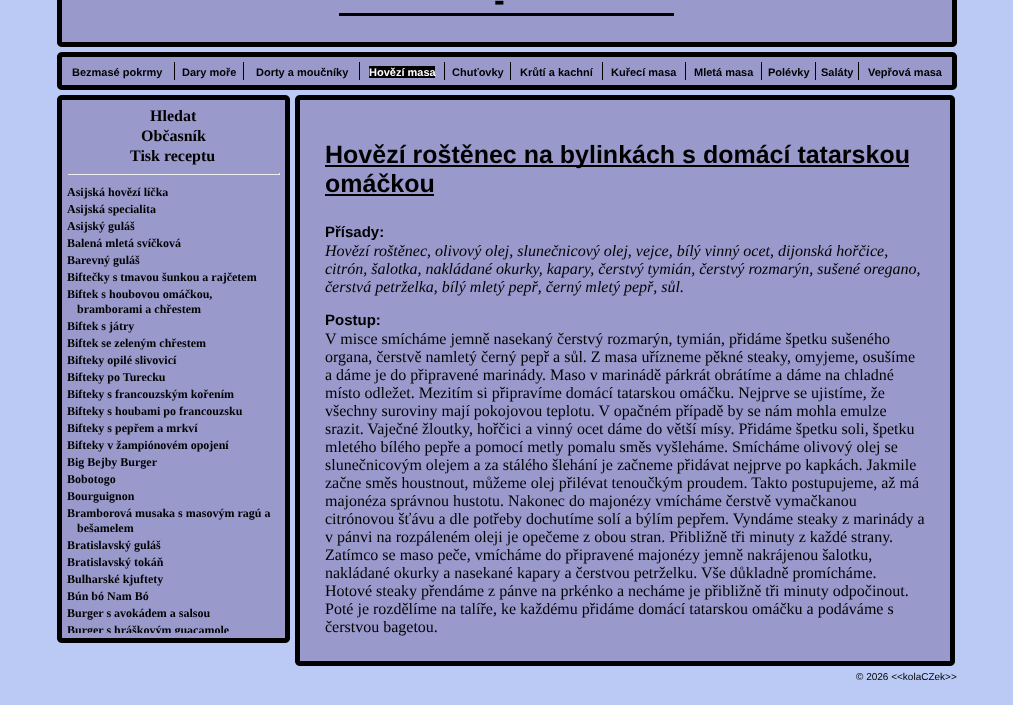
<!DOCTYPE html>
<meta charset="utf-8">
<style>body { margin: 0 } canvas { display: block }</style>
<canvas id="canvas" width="1013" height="705"></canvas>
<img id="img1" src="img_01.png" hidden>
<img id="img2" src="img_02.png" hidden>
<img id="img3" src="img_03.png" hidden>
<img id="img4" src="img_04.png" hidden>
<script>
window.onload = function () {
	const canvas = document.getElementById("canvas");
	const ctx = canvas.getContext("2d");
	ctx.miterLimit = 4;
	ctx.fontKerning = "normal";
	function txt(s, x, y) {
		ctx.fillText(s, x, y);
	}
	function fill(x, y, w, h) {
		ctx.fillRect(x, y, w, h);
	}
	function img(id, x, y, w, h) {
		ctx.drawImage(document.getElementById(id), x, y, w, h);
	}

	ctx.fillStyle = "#BACAF4";
	fill(0, 0, 1013, 705);
	ctx.fillStyle = "#9999CC";
	ctx.beginPath();
	ctx.rect(59.5, -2.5, 895, 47);
	ctx.fill();
	ctx.strokeStyle = "#000000";
	ctx.lineWidth = 5;
	ctx.stroke();
	ctx.fillStyle = "#000000";
	fill(339, 13, 335, 3);
	img("img1", 57, 43, 5, 4);
	img("img2", 952, 43, 5, 4);
	ctx.fillStyle = "#9999CC";
	ctx.beginPath();
	ctx.rect(59.5, 54.5, 895, 33);
	ctx.fill();
	ctx.stroke();
	img("img3", 57, 52, 5, 4);
	img("img4", 952, 52, 5, 4);
	ctx.fillStyle = "#000000";
	fill(174, 62, 1, 18);
	fill(243, 62, 1, 18);
	fill(359, 62, 1, 18);
	fill(369, 66, 66, 12);
	fill(444, 62, 1, 18);
	fill(510, 62, 1, 18);
	fill(602, 62, 1, 18);
	fill(685, 62, 1, 18);
	fill(761, 62, 1, 18);
	fill(815, 62, 1, 18);
	fill(858, 62, 1, 18);
	img("img1", 57, 86, 5, 4);
	img("img2", 952, 86, 5, 4);
	ctx.fillStyle = "#9999CC";
	ctx.beginPath();
	ctx.rect(59.5, 97.5, 228, 543);
	ctx.fill();
	ctx.stroke();
	img("img3", 57, 95, 5, 4);
	img("img4", 285, 95, 5, 4);
	ctx.fillStyle = "#9F9F9F";
	fill(67, 173, 213, 1);
	ctx.fillStyle = "#EEEEEE";
	fill(279, 173, 1, 2);
	fill(67, 174, 213, 1);
	ctx.fillStyle = "#9F9F9F";
	fill(67, 173, 1, 2);
	img("img1", 57, 639, 5, 4);
	img("img2", 285, 639, 5, 4);
	ctx.fillStyle = "#9999CC";
	ctx.beginPath();
	ctx.rect(297.5, 97.5, 655, 566);
	ctx.fill();
	ctx.stroke();
	img("img3", 295, 95, 5, 4);
	img("img4", 950, 95, 5, 4);
	ctx.fillStyle = "#000000";
	fill(325, 165, 584, 2);
	fill(325, 194, 109, 2);
	img("img1", 295, 662, 5, 4);
	img("img2", 950, 662, 5, 4);
	ctx.font = "bold 32px Liberation Sans";
	txt("-", 494, 11);
	ctx.font = "bold 11px Liberation Sans";
	txt("Bezmasé pokrmy", 72, 76);
	txt("Dary moře", 182, 76);
	txt("Dorty a moučníky", 256, 76);
	ctx.fillStyle = "#FFFFFF";
	txt("Hovězí masa", 369, 76);
	ctx.fillStyle = "#000000";
	txt("Chuťovky", 452, 76);
	txt("Krůtí a kachní", 520, 76);
	txt("Kuřecí masa", 611, 76);
	txt("Mletá masa", 694, 76);
	txt("Polévky", 768, 76);
	txt("Saláty", 821, 76);
	txt("Vepřová masa", 868, 76);
	ctx.font = "bold 16px Liberation Serif";
	txt("Hledat", 150, 121);
	txt("Občasník", 141, 141);
	txt("Tisk receptu", 130, 161);
	ctx.font = "bold 12px Liberation Serif";
	txt("Asijská hovězí líčka", 67, 196);
	txt("Asijská specialita", 67, 213);
	txt("Asijský guláš", 67, 230);
	txt("Balená mletá svíčková", 67, 247);
	txt("Barevný guláš", 67, 264);
	txt("Biftečky s tmavou šunkou a rajčetem", 67, 281);
	txt("Biftek s houbovou omáčkou,", 67, 298);
	txt("bramborami a chřestem", 77, 313);
	txt("Biftek s játry", 67, 330);
	txt("Biftek se zeleným chřestem", 67, 347);
	txt("Bifteky opilé slivovicí", 67, 364);
	txt("Bifteky po Turecku", 67, 381);
	txt("Bifteky s francouzským kořením", 67, 398);
	txt("Bifteky s houbami po francouzsku", 67, 415);
	txt("Bifteky s pepřem a mrkví", 67, 432);
	txt("Bifteky v žampiónovém opojení", 67, 449);
	txt("Big Bejby Burger", 67, 466);
	txt("Bobotogo", 67, 483);
	txt("Bourguignon", 67, 500);
	txt("Bramborová musaka s masovým ragú a", 67, 517);
	txt("bešamelem", 77, 532);
	txt("Bratislavský guláš", 67, 549);
	txt("Bratislavský tokáň", 67, 566);
	txt("Bulharské kjuftety", 67, 583);
	txt("Bún bó Nam Bó", 67, 600);
	txt("Burger s avokádem a salsou", 67, 617);
	ctx.save();
	ctx.beginPath();
	ctx.rect(67, 183, 213, 450);
	ctx.clip();
	txt("Burger s hráškovým guacamole", 67, 634);
	ctx.restore();
	ctx.font = "bold 25px Liberation Sans";
	txt("Hovězí roštěnec na bylinkách s domácí tatarskou", 325, 163);
	txt("omáčkou", 325, 192);
	ctx.font = "bold 15px Liberation Sans";
	txt("Přísady:", 325, 237);
	ctx.font = "italic 16px Liberation Serif";
	txt("Hovězí roštěnec, olivový olej, slunečnicový olej, vejce, bílý vinný ocet, dijonská hořčice,", 325, 256);
	txt("citrón, šalotka, nakládané okurky, kapary, čerstvý tymián, čerstvý rozmarýn, sušené oregano,", 325, 274);
	txt("čerstvá petrželka, bílý mletý pepř, černý mletý pepř, sůl.", 325, 292);
	ctx.font = "bold 15px Liberation Sans";
	txt("Postup:", 325, 325);
	ctx.font = "16px Liberation Serif";
	txt("V misce smícháme jemně nasekaný čerstvý rozmarýn, tymián, přidáme špetku sušeného", 325, 344);
	txt("organa, čerstvě namletý černý pepř a sůl. Z masa uřízneme pěkné steaky, omyjeme, osušíme", 325, 362);
	txt("a dáme je do připravené marinády. Maso v marinádě párkrát obrátíme a dáme na chladné", 325, 380);
	txt("místo odležet. Mezitím si připravíme domácí tatarskou omáčku. Nejprve se ujistíme, že", 325, 398);
	txt("všechny suroviny mají pokojovou teplotu. V opačném případě by se nám mohla emulze", 325, 416);
	txt("srazit. Vaječné žloutky, hořčici a vinný ocet dáme do větší mísy. Přidáme špetku soli, špetku", 325, 434);
	txt("mletého bílého pepře a pomocí metly pomalu směs vyšleháme. Smícháme olivový olej se", 325, 452);
	txt("slunečnicovým olejem a za stálého šlehání je začneme přidávat nejprve po kapkách. Jakmile", 325, 470);
	txt("začne směs houstnout, můžeme olej přilévat tenoučkým proudem. Takto postupujeme, až má", 325, 488);
	txt("majonéza správnou hustotu. Nakonec do majonézy vmícháme čerstvě vymačkanou", 325, 506);
	txt("citrónovou šťávu a dle potřeby dochutíme solí a býlím pepřem. Vyndáme steaky z marinády a", 325, 524);
	txt("v pánvi na rozpáleném oleji je opečeme z obou stran. Přibližně tři minuty z každé strany.", 325, 542);
	txt("Zatímco se maso peče, vmícháme do připravené majonézy jemně nakrájenou šalotku,", 325, 560);
	txt("nakládané okurky a nasekané kapary a čerstvou petrželku. Vše důkladně promícháme.", 325, 578);
	txt("Hotové steaky přendáme z pánve na prkénko a necháme je přibližně tři minuty odpočinout.", 325, 596);
	txt("Poté je rozdělíme na talíře, ke každému přidáme domácí tatarskou omáčku a podáváme s", 325, 614);
	txt("čerstvou bagetou.", 325, 632);
	ctx.font = "10px Liberation Sans";
	txt("© 2026 <<kolaCZek>>", 856, 680);
};
</script>
